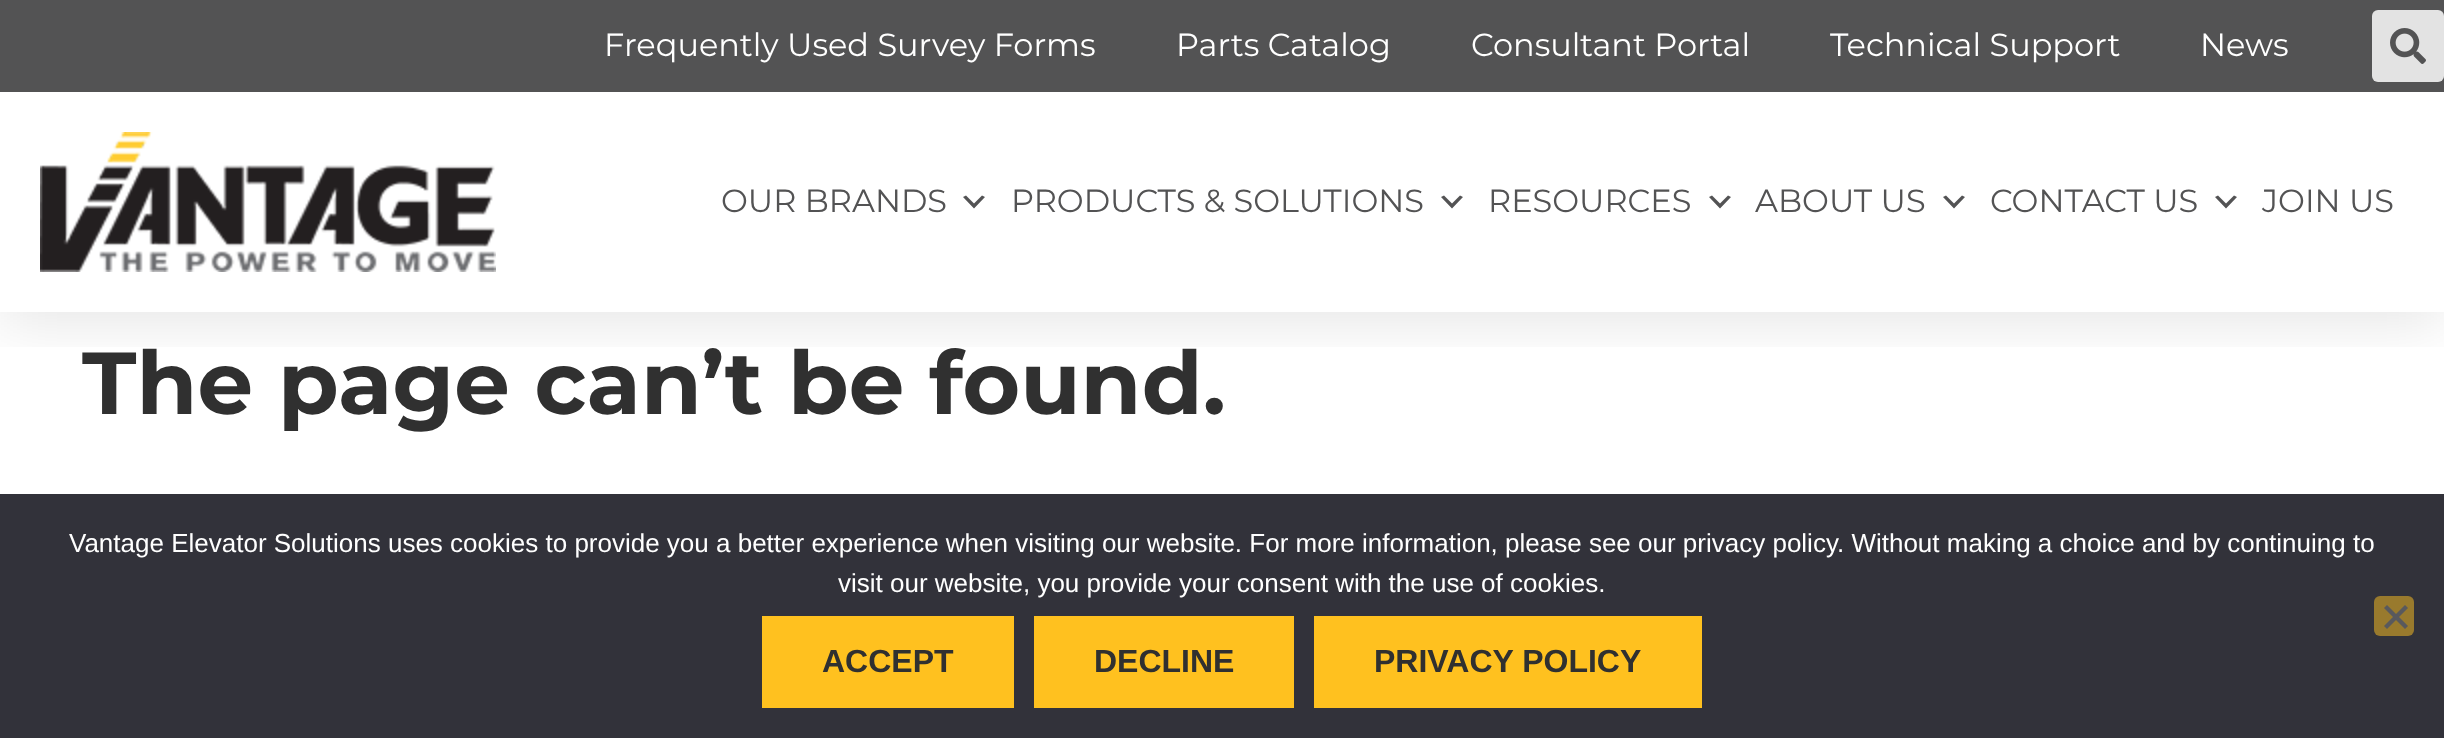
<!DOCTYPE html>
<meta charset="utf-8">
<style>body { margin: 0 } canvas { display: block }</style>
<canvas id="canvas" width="2444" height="738"></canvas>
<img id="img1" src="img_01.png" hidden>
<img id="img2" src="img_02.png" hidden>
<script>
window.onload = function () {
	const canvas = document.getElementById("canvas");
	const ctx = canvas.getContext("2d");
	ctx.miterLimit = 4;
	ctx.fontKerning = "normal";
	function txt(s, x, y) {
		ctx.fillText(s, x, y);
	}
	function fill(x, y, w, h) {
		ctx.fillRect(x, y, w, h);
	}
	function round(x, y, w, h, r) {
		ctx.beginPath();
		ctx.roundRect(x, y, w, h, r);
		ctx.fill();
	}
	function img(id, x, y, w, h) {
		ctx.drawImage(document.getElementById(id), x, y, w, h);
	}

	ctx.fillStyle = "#FFFFFF";
	fill(0, 0, 2444, 738);
	ctx.save();
	ctx.beginPath();
	ctx.rect(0, 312, 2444, 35);
	ctx.clip();
	ctx.fillStyle = "rgba(0, 0, 0, 0.1)";
	ctx.filter = "blur(30px)";
	ctx.beginPath();
	ctx.rect(0, 10, 2444, 312);
	ctx.fill();
	ctx.filter = "none";
	ctx.restore();
	ctx.fillStyle = "#535354";
	fill(0, 0, 2444, 92);
	ctx.fillStyle = "#E3E3E3";
	round(2372, 10, 72, 72, 6);
	img("img1", 2390, 28, 36, 36);
	img("img2", 40, 132, 456, 140);
	ctx.fillStyle = "#535354";
	ctx.beginPath();
	ctx.moveTo(966, 195.5);
	ctx.lineTo(974, 203.5);
	ctx.lineTo(982, 195.5);
	ctx.lineTo(985, 197);
	ctx.lineTo(974, 208.5);
	ctx.lineTo(963, 197);
	ctx.closePath();
	ctx.fill();
	ctx.beginPath();
	ctx.moveTo(1444, 195.5);
	ctx.lineTo(1452, 203.5);
	ctx.lineTo(1460, 195.5);
	ctx.lineTo(1463, 197);
	ctx.lineTo(1452, 208.5);
	ctx.lineTo(1441, 197);
	ctx.closePath();
	ctx.fill();
	ctx.beginPath();
	ctx.moveTo(1712, 195.5);
	ctx.lineTo(1720, 203.5);
	ctx.lineTo(1728, 195.5);
	ctx.lineTo(1731, 197);
	ctx.lineTo(1720, 208.5);
	ctx.lineTo(1709, 197);
	ctx.closePath();
	ctx.fill();
	ctx.beginPath();
	ctx.moveTo(1946, 195.5);
	ctx.lineTo(1954, 203.5);
	ctx.lineTo(1962, 195.5);
	ctx.lineTo(1965, 197);
	ctx.lineTo(1954, 208.5);
	ctx.lineTo(1943, 197);
	ctx.closePath();
	ctx.fill();
	ctx.beginPath();
	ctx.moveTo(2218, 195.5);
	ctx.lineTo(2226, 203.5);
	ctx.lineTo(2234, 195.5);
	ctx.lineTo(2237, 197);
	ctx.lineTo(2226, 208.5);
	ctx.lineTo(2215, 197);
	ctx.closePath();
	ctx.fill();
	ctx.fillStyle = "#32323A";
	fill(0, 494, 2444, 244);
	ctx.fillStyle = "#997A2D";
	round(2374, 596, 40, 40, 6);
	ctx.fillStyle = "#59595D";
	ctx.beginPath();
	ctx.moveTo(2405, 605);
	ctx.lineTo(2408, 608);
	ctx.lineTo(2387, 629);
	ctx.lineTo(2384, 626);
	ctx.closePath();
	ctx.fill();
	ctx.beginPath();
	ctx.moveTo(2384, 608);
	ctx.lineTo(2387, 605);
	ctx.lineTo(2408, 626);
	ctx.lineTo(2405, 629);
	ctx.closePath();
	ctx.fill();
	ctx.fillStyle = "#FFC11F";
	fill(762, 616, 252, 92);
	fill(1034, 616, 260, 92);
	fill(1314, 616, 388, 92);
	ctx.font = "32px Montserrat";
	ctx.fillStyle = "#FFFFFF";
	txt("Frequently Used Survey Forms", 604, 56);
	txt("Parts Catalog", 1176, 56);
	txt("Consultant Portal", 1471, 56);
	txt("Technical Support", 1830, 56);
	txt("News", 2200, 56);
	ctx.fillStyle = "#535354";
	txt("OUR BRANDS", 721, 212);
	txt("PRODUCTS & SOLUTIONS", 1011, 212);
	txt("RESOURCES", 1488, 212);
	txt("ABOUT US", 1755, 212);
	txt("CONTACT US", 1990, 212);
	txt("JOIN US", 2262, 212);
	ctx.font = "bold 88px Montserrat";
	ctx.fillStyle = "#303030";
	txt("The page can’t be found.", 82, 414);
	ctx.font = "26px Liberation Sans";
	ctx.fillStyle = "#FFFFFF";
	txt("Vantage Elevator Solutions uses cookies to provide you a better experience when visiting our website. For more information, please see our privacy policy. Without making a choice and by continuing to", 69, 552);
	txt("visit our website, you provide your consent with the use of cookies.", 838, 592);
	ctx.font = "bold 32px Liberation Sans";
	ctx.fillStyle = "#303030";
	txt("ACCEPT", 822, 672);
	txt("DECLINE", 1094, 672);
	txt("PRIVACY POLICY", 1374, 672);
};
</script>
